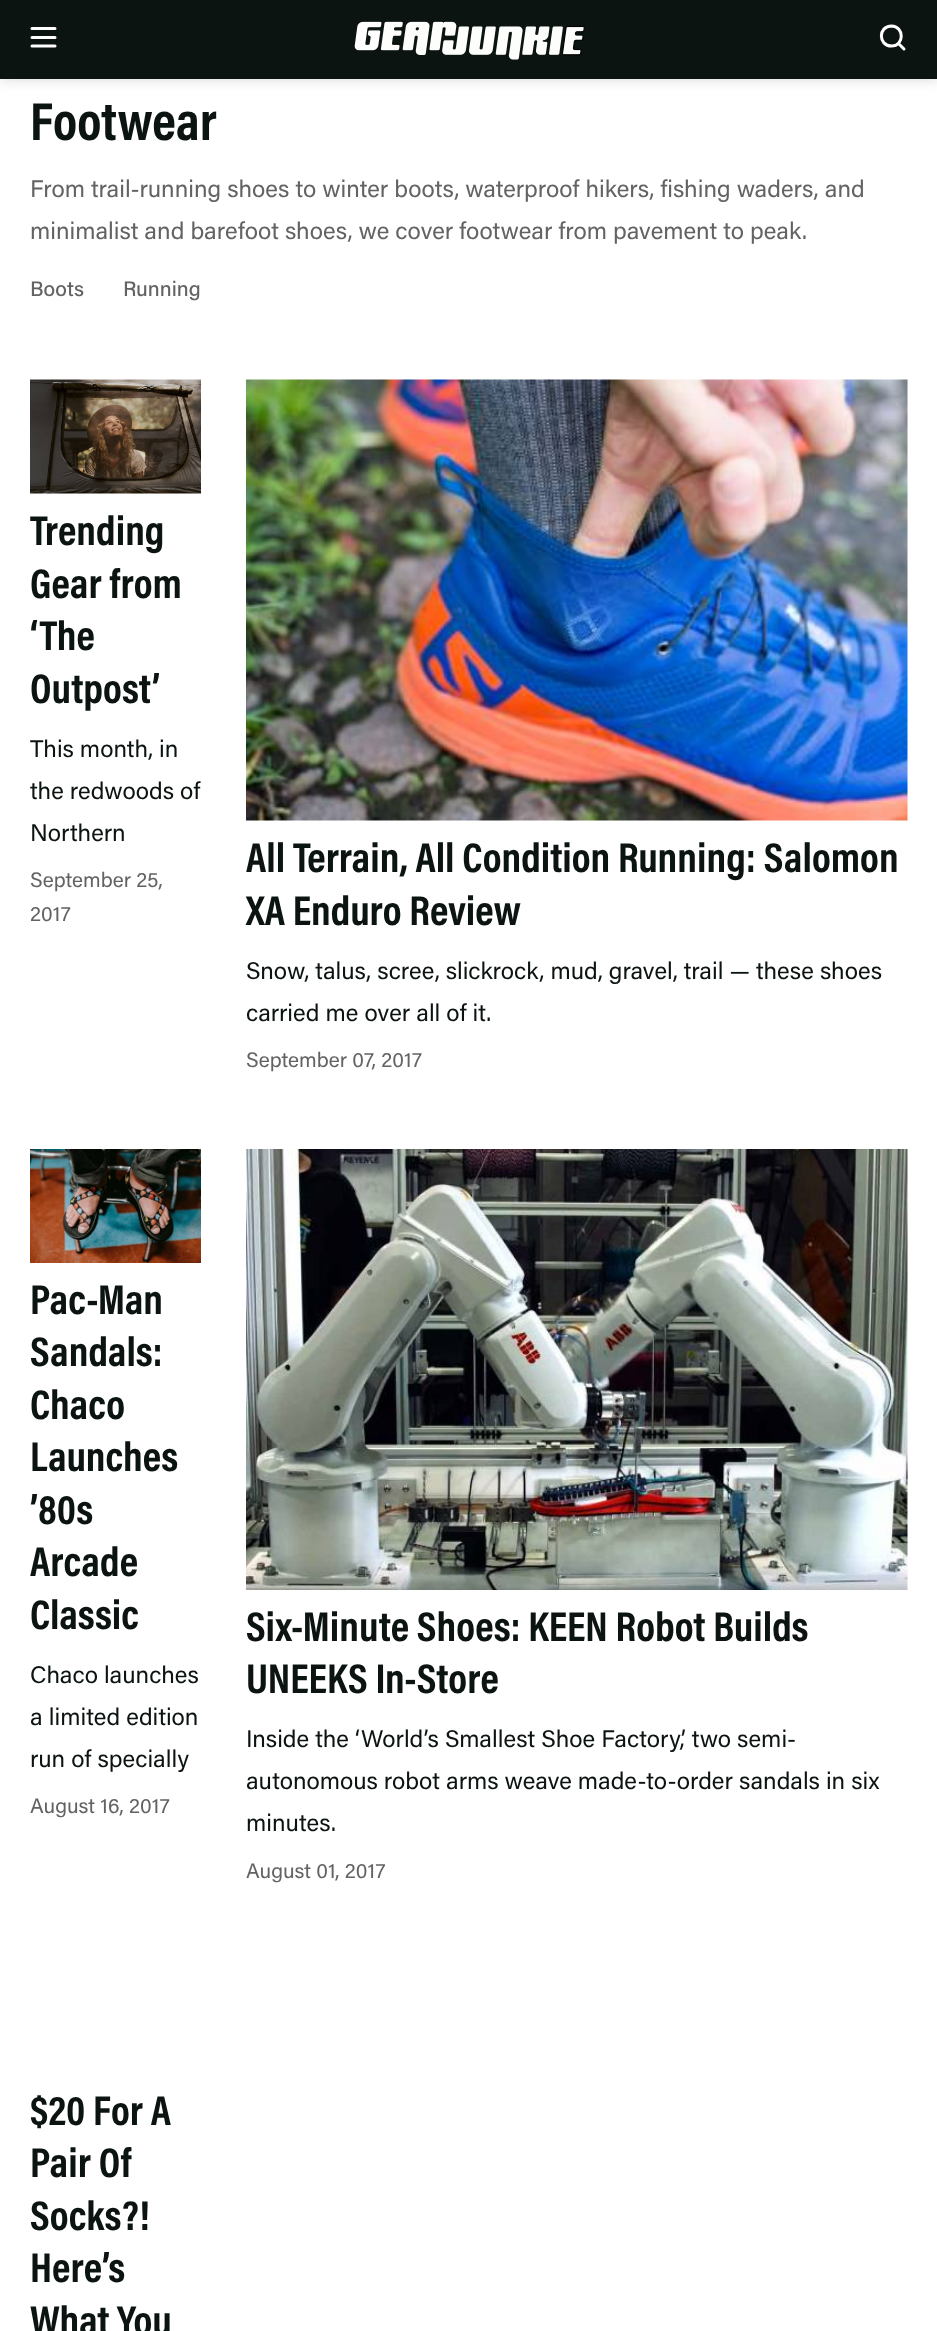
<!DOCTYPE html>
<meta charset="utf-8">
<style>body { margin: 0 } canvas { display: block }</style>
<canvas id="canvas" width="937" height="2331"></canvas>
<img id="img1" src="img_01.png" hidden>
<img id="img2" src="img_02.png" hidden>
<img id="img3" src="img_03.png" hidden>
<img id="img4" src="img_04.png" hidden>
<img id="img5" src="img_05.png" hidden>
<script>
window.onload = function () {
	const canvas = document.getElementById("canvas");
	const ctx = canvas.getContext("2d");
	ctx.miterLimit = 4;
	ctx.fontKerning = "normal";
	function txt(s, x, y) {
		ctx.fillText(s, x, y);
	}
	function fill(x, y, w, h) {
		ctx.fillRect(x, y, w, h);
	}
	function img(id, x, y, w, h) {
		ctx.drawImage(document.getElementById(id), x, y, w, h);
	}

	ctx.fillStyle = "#FFFFFF";
	fill(0, 0, 937, 2331);
	ctx.fillStyle = "rgba(0, 0, 0, 0.12)";
	ctx.filter = "blur(6px)";
	ctx.beginPath();
	ctx.rect(0, 3, 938, 78);
	ctx.fill();
	ctx.filter = "none";
	ctx.fillStyle = "#0C1412";
	fill(0, 0, 937, 79);
	ctx.beginPath();
	ctx.moveTo(32, 37.5);
	ctx.lineTo(55, 37.5);
	ctx.moveTo(32, 28.5);
	ctx.lineTo(55, 28.5);
	ctx.moveTo(32, 46);
	ctx.lineTo(55, 46);
	ctx.strokeStyle = "#FFFFFF";
	ctx.lineWidth = 3;
	ctx.lineCap = "round";
	ctx.lineJoin = "round";
	ctx.stroke();
	img("img1", 354, 21, 231, 39);
	ctx.beginPath();
	ctx.moveTo(891.5, 46);
	ctx.bezierCurveTo(904.5, 46, 904.5, 26.5, 891.5, 26);
	ctx.bezierCurveTo(878, 26, 878, 46, 891.5, 46);
	ctx.closePath();
	ctx.moveTo(904, 49);
	ctx.lineTo(898.5, 43.5);
	ctx.stroke();
	img("img2", 30, 379, 171, 115);
	img("img3", 246, 379, 662, 442);
	img("img4", 30, 1149, 171, 114);
	img("img5", 246, 1149, 662, 441);
	ctx.font = "bold 54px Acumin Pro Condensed";
	txt("Footwear", 30, 140);
	ctx.font = "24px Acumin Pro";
	ctx.fillStyle = "#636363";
	txt("From trail-running shoes to winter boots, waterproof hikers, fishing waders, and", 30, 197);
	txt("minimalist and barefoot shoes, we cover footwear from pavement to peak.", 30, 239);
	ctx.font = "500 20.9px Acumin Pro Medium";
	txt("Boots", 30, 296);
	txt("Running", 123, 296);
	ctx.font = "bold 42px Acumin Pro Condensed";
	ctx.fillStyle = "#0C1412";
	txt("Trending", 30, 545);
	txt("Gear from", 30, 598);
	txt("‘The", 30, 650);
	txt("Outpost’", 30, 703);
	ctx.font = "24px Acumin Pro";
	txt("This month, in", 30, 757);
	txt("the redwoods of", 30, 799);
	txt("Northern", 30, 841);
	ctx.font = "20.9px Acumin Pro";
	ctx.fillStyle = "#636363";
	txt("September 25,", 30, 887);
	txt("2017", 30, 921);
	ctx.font = "bold 42px Acumin Pro Condensed";
	ctx.fillStyle = "#0C1412";
	txt("All Terrain, All Condition Running: Salomon", 246, 872);
	txt("XA Enduro Review", 246, 925);
	ctx.font = "24px Acumin Pro";
	txt("Snow, talus, scree, slickrock, mud, gravel, trail — these shoes", 246, 979);
	txt("carried me over all of it.", 246, 1021);
	ctx.font = "20.9px Acumin Pro";
	ctx.fillStyle = "#636363";
	txt("September 07, 2017", 246, 1067);
	ctx.font = "bold 42px Acumin Pro Condensed";
	ctx.fillStyle = "#0C1412";
	txt("Pac-Man", 30, 1314);
	txt("Sandals:", 30, 1366);
	txt("Chaco", 30, 1419);
	txt("Launches", 30, 1471);
	txt("’80s", 30, 1524);
	txt("Arcade", 30, 1576);
	txt("Classic", 30, 1629);
	ctx.font = "24px Acumin Pro";
	txt("Chaco launches", 30, 1683);
	txt("a limited edition", 30, 1725);
	txt("run of specially", 30, 1767);
	ctx.font = "20.9px Acumin Pro";
	ctx.fillStyle = "#636363";
	txt("August 16, 2017", 30, 1813);
	ctx.font = "bold 42px Acumin Pro Condensed";
	ctx.fillStyle = "#0C1412";
	txt("Six-Minute Shoes: KEEN Robot Builds", 246, 1641);
	txt("UNEEKS In-Store", 246, 1693);
	ctx.font = "24px Acumin Pro";
	txt("Inside the ‘World’s Smallest Shoe Factory,’ two semi-", 246, 1747);
	txt("autonomous robot arms weave made-to-order sandals in six", 246, 1789);
	txt("minutes.", 246, 1831);
	ctx.font = "20.9px Acumin Pro";
	ctx.fillStyle = "#636363";
	txt("August 01, 2017", 246, 1878);
	ctx.font = "bold 42px Acumin Pro Condensed";
	ctx.fillStyle = "#0C1412";
	txt("$20 For A", 30, 2125);
	txt("Pair Of", 30, 2177);
	txt("Socks?!", 30, 2230);
	txt("Here’s", 30, 2282);
	txt("What You", 30, 2335);
};
</script>
